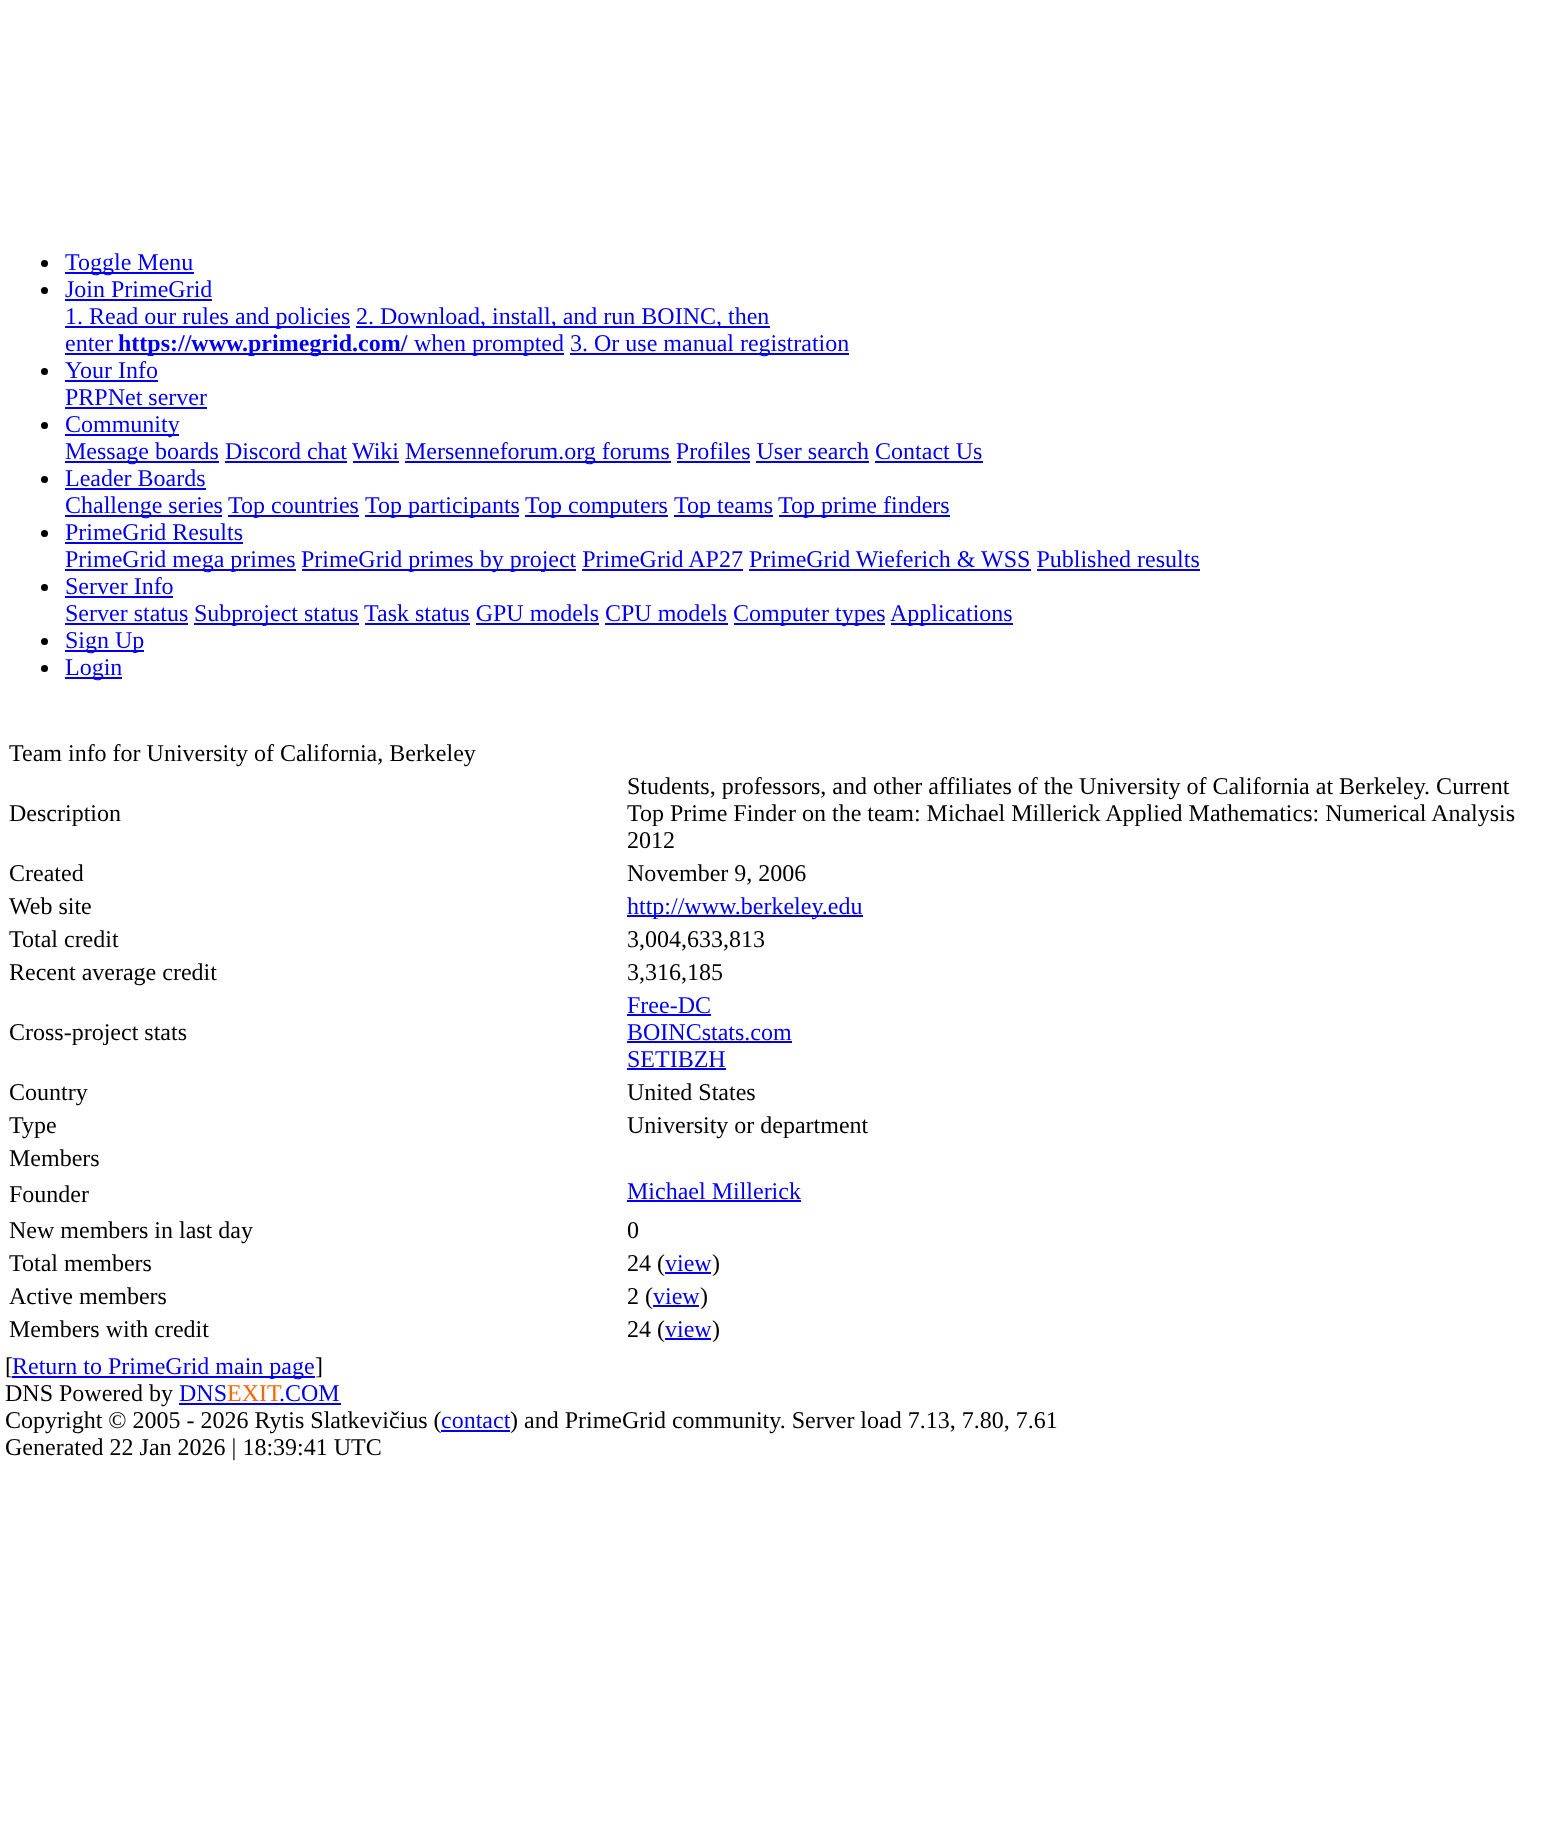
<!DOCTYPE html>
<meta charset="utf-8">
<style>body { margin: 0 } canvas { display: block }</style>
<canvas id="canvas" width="1561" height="1837"></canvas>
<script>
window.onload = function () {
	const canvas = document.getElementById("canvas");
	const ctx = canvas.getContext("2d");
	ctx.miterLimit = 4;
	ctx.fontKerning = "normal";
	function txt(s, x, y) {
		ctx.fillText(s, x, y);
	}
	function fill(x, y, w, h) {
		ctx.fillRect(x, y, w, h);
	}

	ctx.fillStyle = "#FFFFFF";
	fill(0, 0, 1561, 1837);
	ctx.fillStyle = "#000000";
	ctx.beginPath();
	ctx.arc(44.5, 263.5, 3.5, 0, Math.PI * 2);
	ctx.fill();
	ctx.fillStyle = "#0000EE";
	fill(65, 272, 129, 2);
	ctx.fillStyle = "#000000";
	ctx.beginPath();
	ctx.arc(44.5, 290.5, 3.5, 0, Math.PI * 2);
	ctx.fill();
	ctx.fillStyle = "#0000EE";
	fill(65, 299, 147, 2);
	fill(65, 326, 285, 2);
	fill(356, 326, 414, 2);
	fill(65, 353, 499, 2);
	fill(570, 353, 279, 2);
	ctx.fillStyle = "#000000";
	ctx.beginPath();
	ctx.arc(44.5, 371.5, 3.5, 0, Math.PI * 2);
	ctx.fill();
	ctx.fillStyle = "#0000EE";
	fill(65, 380, 93, 2);
	fill(65, 407, 142, 2);
	ctx.fillStyle = "#000000";
	ctx.beginPath();
	ctx.arc(44.5, 425.5, 3.5, 0, Math.PI * 2);
	ctx.fill();
	ctx.fillStyle = "#0000EE";
	fill(65, 434, 114, 2);
	fill(65, 461, 154, 2);
	fill(353, 461, 46, 2);
	fill(405, 461, 266, 2);
	fill(225, 461, 122, 2);
	fill(677, 461, 73, 2);
	fill(756, 461, 113, 2);
	fill(875, 461, 108, 2);
	ctx.fillStyle = "#000000";
	ctx.beginPath();
	ctx.arc(44.5, 479.5, 3.5, 0, Math.PI * 2);
	ctx.fill();
	ctx.fillStyle = "#0000EE";
	fill(65, 488, 141, 2);
	fill(65, 515, 157, 2);
	fill(228, 515, 131, 2);
	fill(365, 515, 154, 2);
	fill(525, 515, 143, 2);
	fill(674, 515, 99, 2);
	fill(779, 515, 171, 2);
	ctx.fillStyle = "#000000";
	ctx.beginPath();
	ctx.arc(44.5, 533.5, 3.5, 0, Math.PI * 2);
	ctx.fill();
	ctx.fillStyle = "#0000EE";
	fill(65, 542, 178, 2);
	fill(65, 569, 231, 2);
	fill(302, 569, 274, 2);
	fill(582, 569, 161, 2);
	fill(749, 569, 282, 2);
	fill(1037, 569, 163, 2);
	ctx.fillStyle = "#000000";
	ctx.beginPath();
	ctx.arc(44.5, 587.5, 3.5, 0, Math.PI * 2);
	ctx.fill();
	ctx.fillStyle = "#0000EE";
	fill(65, 596, 108, 2);
	fill(65, 623, 123, 2);
	fill(194, 623, 165, 2);
	fill(365, 623, 105, 2);
	fill(734, 623, 151, 2);
	fill(891, 623, 122, 2);
	fill(476, 623, 123, 2);
	fill(605, 623, 123, 2);
	ctx.fillStyle = "#000000";
	ctx.beginPath();
	ctx.arc(44.5, 641.5, 3.5, 0, Math.PI * 2);
	ctx.fill();
	ctx.fillStyle = "#0000EE";
	fill(65, 650, 79, 2);
	ctx.fillStyle = "#000000";
	ctx.beginPath();
	ctx.arc(44.5, 668.5, 3.5, 0, Math.PI * 2);
	ctx.fill();
	ctx.fillStyle = "#0000EE";
	fill(65, 677, 57, 2);
	fill(627, 915, 236, 2);
	fill(627, 1014, 84, 2);
	fill(627, 1041, 165, 2);
	fill(627, 1068, 99, 2);
	fill(627, 1200, 174, 2);
	fill(665, 1272, 46, 2);
	fill(653, 1305, 46, 2);
	fill(665, 1338, 46, 2);
	fill(12, 1376, 303, 2);
	fill(179, 1403, 162, 2);
	fill(441, 1430, 69, 2);
	ctx.font = "24px Liberation Serif";
	txt("Toggle Menu", 65, 270);
	txt("Join PrimeGrid", 65, 297);
	txt("1. Read our rules and policies", 65, 324);
	txt("2. Download, install, and run BOINC, then", 356, 324);
	txt("enter", 65, 351);
	ctx.font = "bold 24px Liberation Serif";
	txt("https://www.primegrid.com/", 118, 351);
	ctx.font = "24px Liberation Serif";
	txt("when prompted", 414, 351);
	txt("3. Or use manual registration", 570, 351);
	txt("Your Info", 65, 378);
	txt("PRPNet server", 65, 405);
	txt("Community", 65, 432);
	txt("Message boards Discord chat", 65, 459);
	txt("Wiki", 352, 459);
	txt("Mersenneforum.org forums Profiles User search Contact Us", 405, 459);
	txt("Leader Boards", 65, 486);
	txt("Challenge series", 65, 513);
	txt("Top countries", 228, 513);
	txt("Top participants", 365, 513);
	txt("Top computers", 525, 513);
	txt("Top teams", 674, 513);
	txt("Top prime finders", 778, 513);
	txt("PrimeGrid Results", 65, 540);
	txt("PrimeGrid mega primes", 65, 567);
	txt("PrimeGrid primes by project PrimeGrid AP27 PrimeGrid Wieferich & WSS Published results", 301, 567);
	txt("Server Info", 65, 594);
	txt("Server status", 65, 621);
	txt("Subproject status", 194, 621);
	txt("Task status GPU models CPU models", 364, 621);
	txt("Computer types", 733, 621);
	txt("Applications", 890, 621);
	txt("Sign Up", 65, 648);
	txt("Login", 65, 675);
	ctx.fillStyle = "#000000";
	txt("Team info for University of California, Berkeley", 9, 761);
	txt("Description", 9, 821);
	txt("Students, professors, and other affiliates of the University of California at Berkeley. Current", 627, 794);
	txt("Top Prime Finder on the team: Michael Millerick Applied Mathematics: Numerical Analysis", 627, 821);
	txt("2012", 627, 848);
	txt("Created", 9, 881);
	txt("November 9, 2006", 627, 881);
	txt("Web site", 9, 914);
	ctx.fillStyle = "#0000EE";
	txt("http://www.berkeley.edu", 627, 914);
	ctx.fillStyle = "#000000";
	txt("Total credit", 9, 947);
	txt("3,004,633,813", 627, 947);
	txt("Recent average credit", 9, 980);
	txt("3,316,185", 627, 980);
	txt("Cross-project stats", 9, 1040);
	ctx.fillStyle = "#0000EE";
	txt("Free-DC", 627, 1013);
	txt("BOINCstats.com", 627, 1040);
	txt("SETIBZH", 627, 1067);
	ctx.fillStyle = "#000000";
	txt("Country", 9, 1100);
	txt("United States", 627, 1100);
	txt("Type", 9, 1133);
	txt("University or department", 627, 1133);
	txt("Members", 9, 1166);
	txt("Founder", 9, 1202);
	ctx.fillStyle = "#0000EE";
	txt("Michael Millerick", 627, 1199);
	ctx.fillStyle = "#000000";
	txt("New members in last day", 9, 1238);
	txt("0", 627, 1238);
	txt("Total members", 9, 1271);
	txt("24 (", 627, 1271);
	ctx.fillStyle = "#0000EE";
	txt("view", 665, 1271);
	ctx.fillStyle = "#000000";
	txt(")", 712, 1271);
	txt("Active members", 9, 1304);
	txt("2 (", 627, 1304);
	ctx.fillStyle = "#0000EE";
	txt("view", 653, 1304);
	ctx.fillStyle = "#000000";
	txt(")", 700, 1304);
	txt("Members with credit", 9, 1337);
	txt("24 (", 627, 1337);
	ctx.fillStyle = "#0000EE";
	txt("view", 665, 1337);
	ctx.fillStyle = "#000000";
	txt(")", 712, 1337);
	txt("[", 5, 1374);
	ctx.fillStyle = "#0000EE";
	txt("Return to PrimeGrid main page", 12, 1374);
	ctx.fillStyle = "#000000";
	txt("]", 315, 1374);
	txt("DNS Powered by", 5, 1401);
	ctx.fillStyle = "#0000EE";
	txt("DNS", 179, 1401);
	ctx.fillStyle = "#FF6600";
	txt("EXIT", 227, 1401);
	ctx.fillStyle = "#0000EE";
	txt(".COM", 279, 1401);
	ctx.fillStyle = "#000000";
	txt("Copyright © 2005 - 2026 Rytis Slatkevičius (", 5, 1428);
	ctx.fillStyle = "#0000EE";
	txt("contact", 441, 1428);
	ctx.fillStyle = "#000000";
	txt(") and PrimeGrid community. Server load 7.13, 7.80, 7.61", 510, 1428);
	txt("Generated 22 Jan 2026 | 18:39:41 UTC", 5, 1455);
};
</script>
